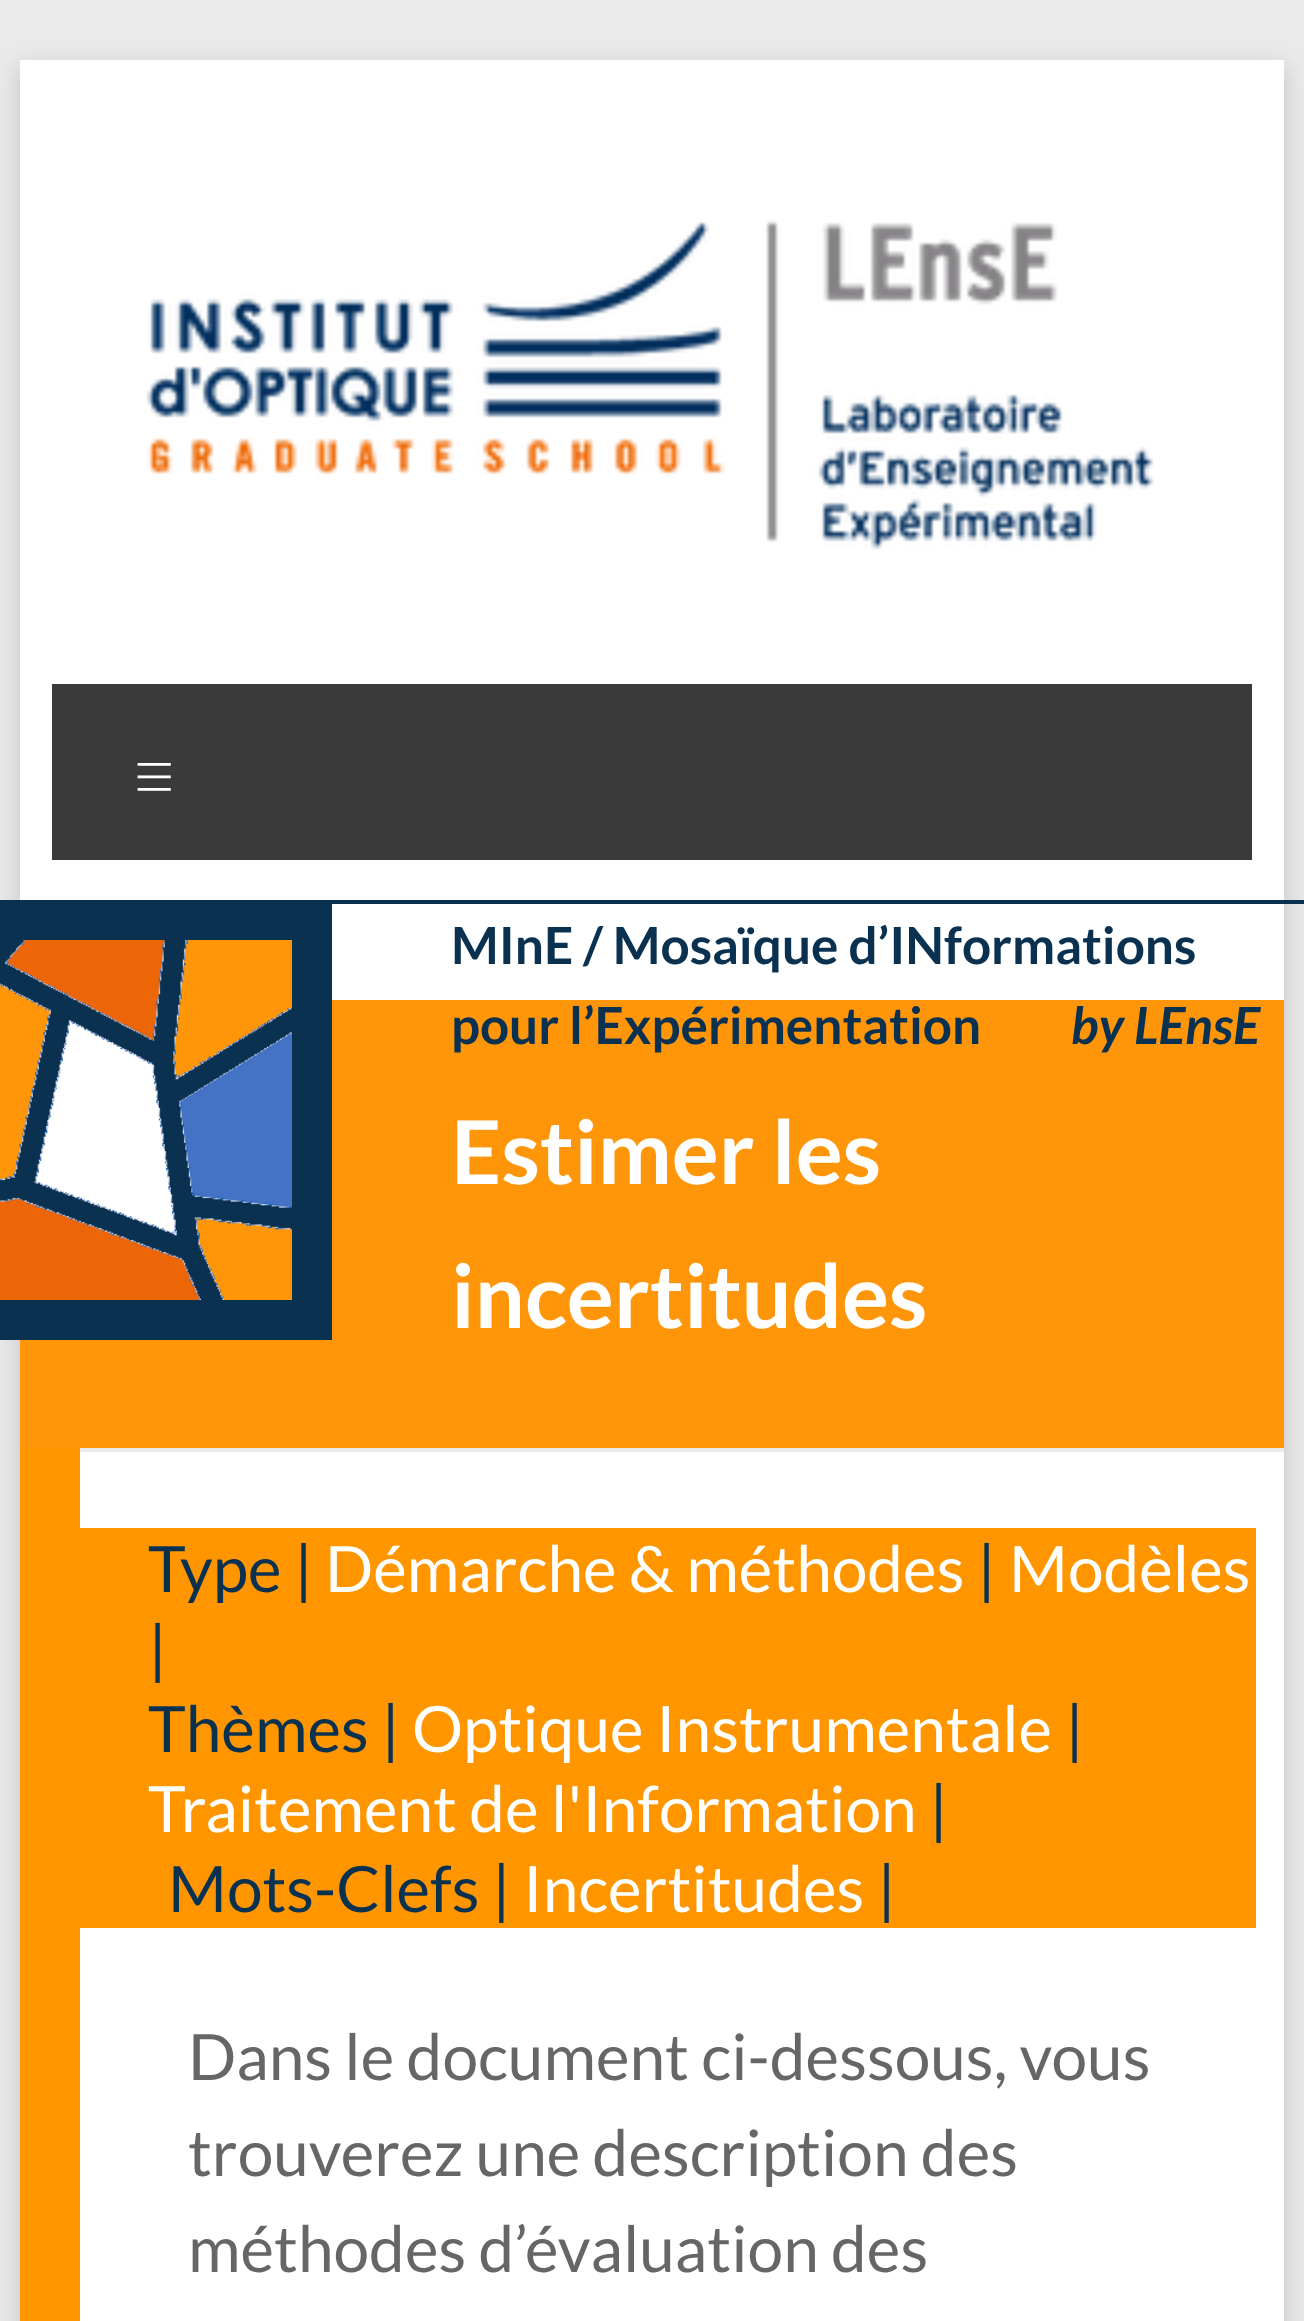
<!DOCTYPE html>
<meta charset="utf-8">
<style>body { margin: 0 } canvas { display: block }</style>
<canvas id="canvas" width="1304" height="2321"></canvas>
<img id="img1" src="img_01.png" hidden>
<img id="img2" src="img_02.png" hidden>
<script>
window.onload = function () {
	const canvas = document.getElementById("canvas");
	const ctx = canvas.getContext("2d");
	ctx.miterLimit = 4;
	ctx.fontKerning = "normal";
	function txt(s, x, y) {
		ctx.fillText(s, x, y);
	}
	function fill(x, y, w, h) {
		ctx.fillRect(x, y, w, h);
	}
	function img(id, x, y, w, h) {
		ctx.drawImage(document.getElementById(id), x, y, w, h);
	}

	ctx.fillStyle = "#EAEAEA";
	fill(0, 0, 1304, 2321);
	ctx.fillStyle = "rgba(100, 100, 100, 0.3)";
	ctx.filter = "blur(12px)";
	ctx.beginPath();
	ctx.rect(20, 68, 1264, 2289);
	ctx.fill();
	ctx.filter = "none";
	ctx.fillStyle = "#FFFFFF";
	fill(20, 60, 1264, 2261);
	img("img1", 146, 219, 1008, 331);
	ctx.fillStyle = "#3A3A3A";
	fill(52, 684, 1200, 176);
	ctx.fillStyle = "#FF960A";
	fill(20, 1000, 1264, 448);
	ctx.fillStyle = "#EAEAEA";
	fill(80, 1448, 1204, 4);
	ctx.fillStyle = "#0A3250";
	fill(332, 900, 972, 4);
	fill(0, 900, 332, 440);
	img("img2", 0, 940, 292, 360);
	ctx.fillStyle = "#FF9600";
	fill(20, 1448, 60, 873);
	fill(80, 1528, 1176, 400);
	ctx.font = "300 80px Lato";
	ctx.fillStyle = "#FFFFFF";
	txt("≡", 131, 804);
	ctx.font = "bold 51.25px Lato";
	ctx.fillStyle = "#0A3250";
	txt("MInE / Mosaïque d’INformations", 451, 964);
	txt("pour l’Expérimentation", 451, 1044);
	ctx.font = "italic bold 51.25px Lato";
	txt("by LEnsE", 1071, 1044);
	ctx.font = "bold 88px Lato";
	ctx.fillStyle = "#FFFFFF";
	txt("Estimer les", 451, 1184);
	txt("incertitudes", 451, 1328);
	ctx.font = "64px Lato";
	ctx.fillStyle = "#0A3250";
	txt("Type |", 148, 1592);
	ctx.fillStyle = "#FFFFFF";
	txt("Démarche & méthodes", 325, 1592);
	ctx.fillStyle = "#0A3250";
	txt("|", 977, 1592);
	ctx.fillStyle = "#FFFFFF";
	txt("Modèles", 1009, 1592);
	ctx.fillStyle = "#0A3250";
	txt("|", 148, 1672);
	txt("Thèmes |", 148, 1752);
	ctx.fillStyle = "#FFFFFF";
	txt("Optique Instrumentale", 412, 1752);
	ctx.fillStyle = "#0A3250";
	txt("|", 1065, 1752);
	ctx.fillStyle = "#FFFFFF";
	txt("Traitement de l'Information", 148, 1832);
	ctx.fillStyle = "#0A3250";
	txt("|", 929, 1832);
	txt("Mots-Clefs |", 168, 1912);
	ctx.fillStyle = "#FFFFFF";
	txt("Incertitudes", 523, 1912);
	ctx.fillStyle = "#0A3250";
	txt("|", 877, 1912);
	ctx.fillStyle = "#666666";
	txt("Dans le document ci-dessous, vous", 188, 2080);
	txt("trouverez une description des", 188, 2176);
	txt("méthodes d’évaluation des", 188, 2272);
};
</script>
